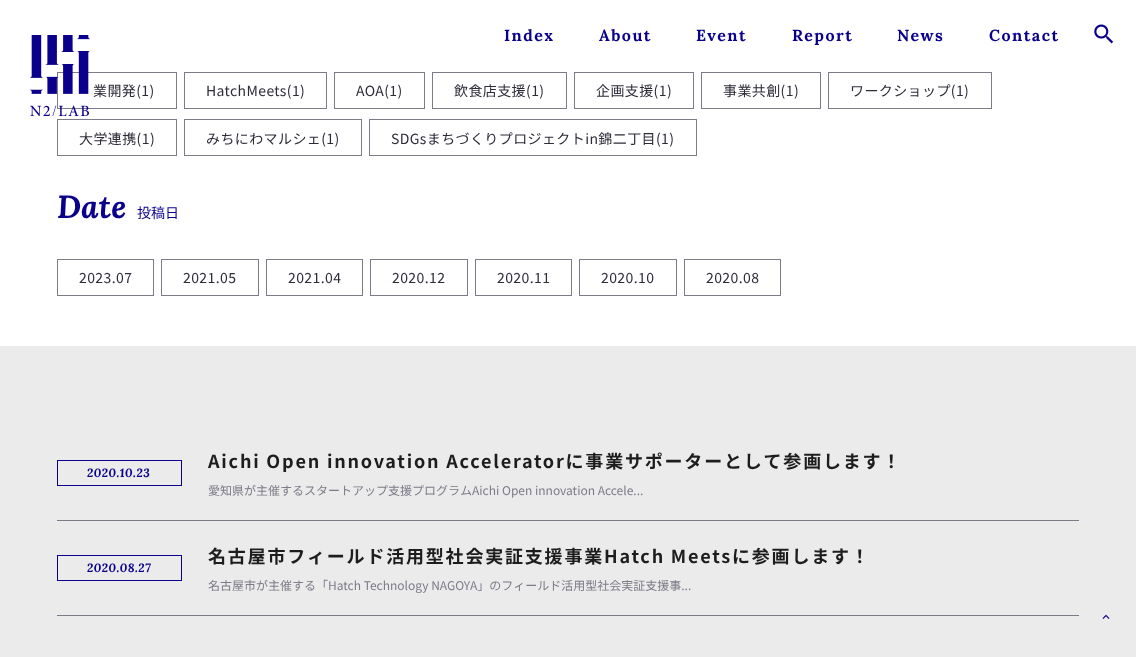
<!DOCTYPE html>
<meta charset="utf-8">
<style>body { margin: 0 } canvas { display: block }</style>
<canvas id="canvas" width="1136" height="657"></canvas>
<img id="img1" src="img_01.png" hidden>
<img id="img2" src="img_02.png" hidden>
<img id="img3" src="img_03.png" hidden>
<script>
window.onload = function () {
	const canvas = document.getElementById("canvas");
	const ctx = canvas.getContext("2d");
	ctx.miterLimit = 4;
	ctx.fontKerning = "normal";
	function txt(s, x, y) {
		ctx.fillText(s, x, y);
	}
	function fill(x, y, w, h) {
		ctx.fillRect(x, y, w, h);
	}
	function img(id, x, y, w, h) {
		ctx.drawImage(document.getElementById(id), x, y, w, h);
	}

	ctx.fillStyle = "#EBEBEB";
	fill(0, 0, 1136, 657);
	ctx.fillStyle = "#FFFFFF";
	fill(0, 0, 1136, 346);
	ctx.strokeStyle = "#7C7B88";
	ctx.strokeRect(57.5, 72.5, 119, 36);
	img("img1", 30, 35, 60, 81);
	img("img2", 1094, 24, 20, 20);
	ctx.strokeRect(184.5, 72.5, 142, 36);
	ctx.strokeRect(334.5, 72.5, 90, 36);
	ctx.strokeRect(432.5, 72.5, 134, 36);
	ctx.strokeRect(574.5, 72.5, 119, 36);
	ctx.strokeRect(701.5, 72.5, 119, 36);
	ctx.strokeRect(828.5, 72.5, 163, 36);
	ctx.strokeRect(57.5, 119.5, 119, 36);
	ctx.strokeRect(184.5, 119.5, 177, 36);
	ctx.strokeRect(369.5, 119.5, 327, 36);
	ctx.strokeRect(57.5, 259.5, 96, 36);
	ctx.strokeRect(161.5, 259.5, 97, 36);
	ctx.strokeRect(266.5, 259.5, 96, 36);
	ctx.strokeRect(370.5, 259.5, 97, 36);
	ctx.strokeRect(475.5, 259.5, 96, 36);
	ctx.strokeRect(579.5, 259.5, 97, 36);
	ctx.strokeRect(684.5, 259.5, 96, 36);
	ctx.fillStyle = "#7C7B88";
	fill(57, 520, 1022, 1);
	ctx.strokeStyle = "#0A008C";
	ctx.strokeRect(57.5, 460.5, 124, 25);
	fill(57, 615, 1022, 1);
	ctx.strokeRect(57.5, 555.5, 124, 25);
	img("img3", 1102, 614, 8, 5);
	ctx.letterSpacing = "1.5px";
	ctx.font = "bold 16px Lora";
	ctx.fillStyle = "#0A008C";
	txt("Index", 504, 41);
	txt("About", 599, 41);
	txt("Event", 696, 41);
	txt("Report", 792, 41);
	txt("News", 897, 41);
	txt("Contact", 989, 41);
	ctx.letterSpacing = "0.4px";
	ctx.font = "14px Noto Sans JP";
	ctx.fillStyle = "#2C2B38";
	txt("業開発(1)", 93, 96);
	txt("HatchMeets(1)", 206, 96);
	txt("AOA(1)", 356, 96);
	txt("飲食店支援(1)", 454, 96);
	txt("企画支援(1)", 596, 96);
	txt("事業共創(1)", 723, 96);
	txt("ワークショップ(1)", 850, 96);
	txt("大学連携(1)", 79, 144);
	txt("みちにわマルシェ(1)", 206, 144);
	txt("SDGsまちづくりプロジェクトin錦二丁目(1)", 391, 144);
	ctx.letterSpacing = "0px";
	ctx.font = "italic bold 32px Lora";
	ctx.fillStyle = "#0A008C";
	txt("Date", 57, 218);
	ctx.font = "14px Noto Sans JP";
	txt("投稿日", 137, 218);
	ctx.letterSpacing = "0.4px";
	ctx.fillStyle = "#2C2B38";
	txt("2023.07", 79, 283);
	txt("2021.05", 183, 283);
	txt("2021.04", 288, 283);
	txt("2020.12", 392, 283);
	txt("2020.11", 497, 283);
	txt("2020.10", 601, 283);
	txt("2020.08", 706, 283);
	ctx.letterSpacing = "0.5px";
	ctx.font = "italic bold 12px Lora";
	ctx.fillStyle = "#0A008C";
	txt("2020.10.23", 87, 477);
	ctx.letterSpacing = "1.8px";
	ctx.font = "bold 18px Noto Sans JP";
	ctx.fillStyle = "#1D1D1D";
	txt("Aichi Open innovation Acceleratorに事業サポーターとして参画します！", 208, 468);
	ctx.letterSpacing = "0px";
	ctx.font = "12px Noto Sans JP";
	ctx.fillStyle = "#7C7B88";
	txt("愛知県が主催するスタートアップ支援プログラムAichi Open innovation Accele...", 208, 495);
	ctx.letterSpacing = "0.5px";
	ctx.font = "italic bold 12px Lora";
	ctx.fillStyle = "#0A008C";
	txt("2020.08.27", 87, 572);
	ctx.letterSpacing = "1.8px";
	ctx.font = "bold 18px Noto Sans JP";
	ctx.fillStyle = "#1D1D1D";
	txt("名古屋市フィールド活用型社会実証支援事業Hatch Meetsに参画します！", 208, 563);
	ctx.letterSpacing = "0px";
	ctx.font = "12px Noto Sans JP";
	ctx.fillStyle = "#7C7B88";
	txt("名古屋市が主催する「Hatch Technology NAGOYA」のフィールド活用型社会実証支援事...", 208, 590);
};
</script>
